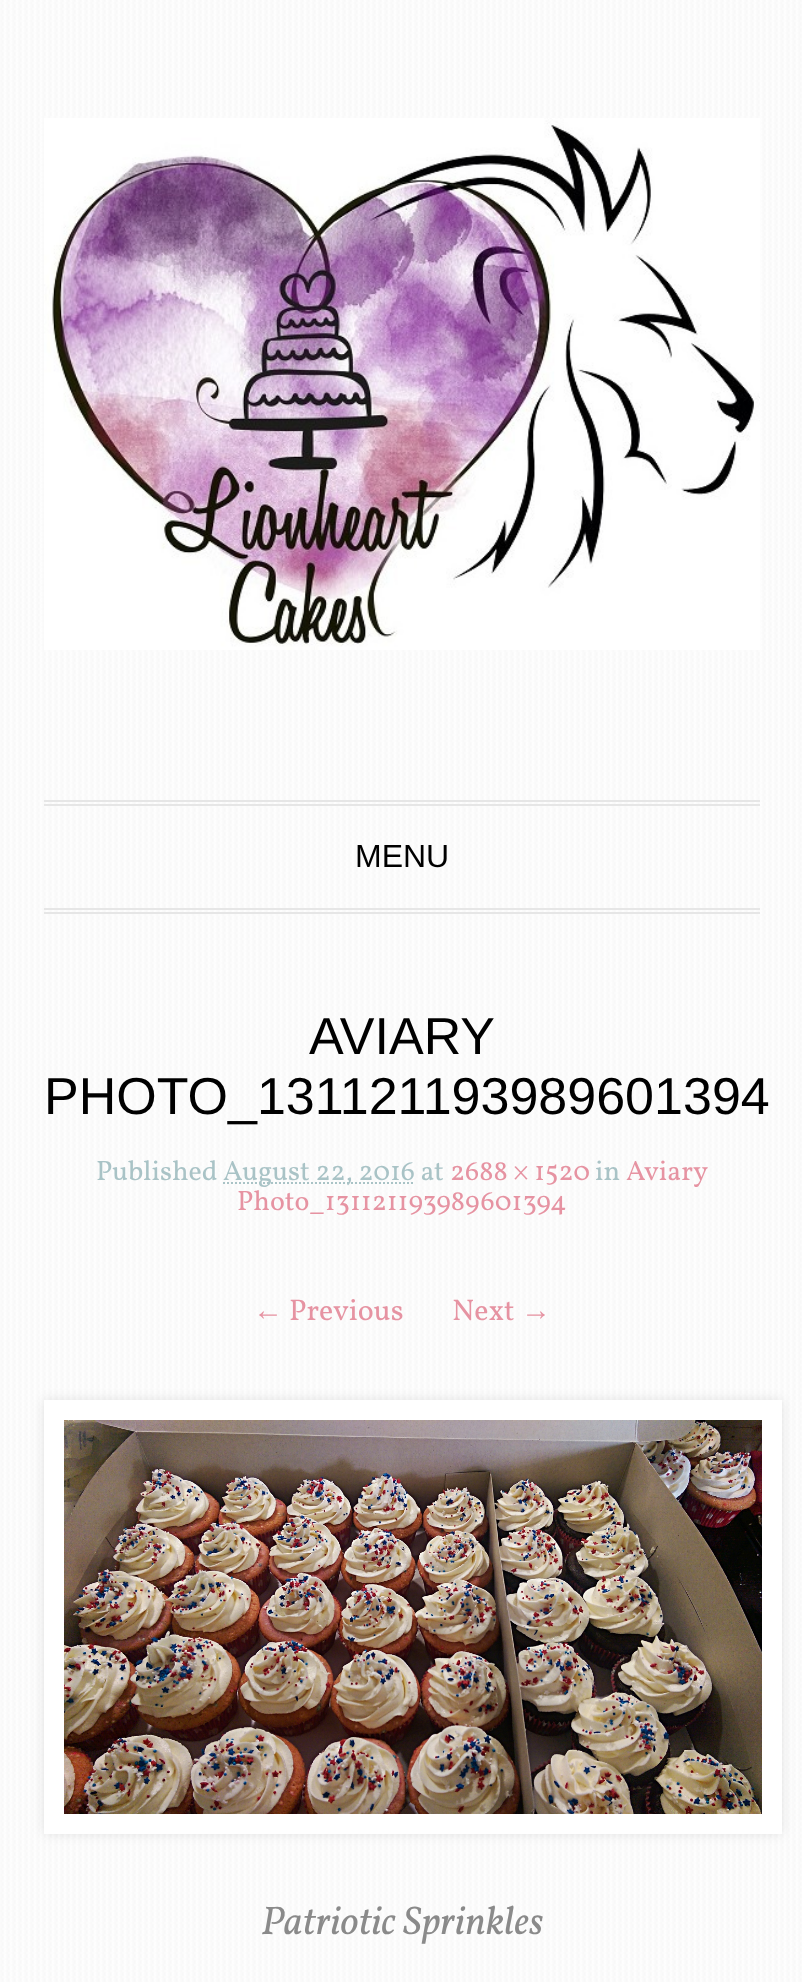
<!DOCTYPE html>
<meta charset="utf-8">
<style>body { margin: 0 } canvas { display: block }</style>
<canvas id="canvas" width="804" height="1982"></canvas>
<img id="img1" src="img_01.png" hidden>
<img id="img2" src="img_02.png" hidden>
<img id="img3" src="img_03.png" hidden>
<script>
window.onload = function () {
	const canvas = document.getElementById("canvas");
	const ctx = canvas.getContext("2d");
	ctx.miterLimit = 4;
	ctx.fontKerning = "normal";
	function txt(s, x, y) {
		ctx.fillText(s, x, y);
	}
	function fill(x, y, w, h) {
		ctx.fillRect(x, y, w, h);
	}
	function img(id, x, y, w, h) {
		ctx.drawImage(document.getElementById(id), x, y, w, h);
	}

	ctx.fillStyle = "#FFFFFF";
	fill(0, 0, 804, 1982);
	img("img1", 0, 0, 802, 1982);
	img("img2", 44, 118, 716, 532);
	ctx.fillStyle = "#E6E6E6";
	fill(44, 800, 716, 2);
	fill(44, 804, 716, 2);
	fill(44, 908, 716, 2);
	fill(44, 912, 716, 2);
	ctx.beginPath();
	ctx.moveTo(223, 1183);
	ctx.lineTo(415, 1183);
	ctx.strokeStyle = "#A9C3C6";
	ctx.lineWidth = 2;
	ctx.setLineDash([2, 2]);
	ctx.stroke();
	ctx.fillStyle = "rgba(0, 0, 0, 0.1)";
	ctx.filter = "blur(6px)";
	ctx.beginPath();
	ctx.rect(44, 1400, 738, 434);
	ctx.fill();
	ctx.filter = "none";
	ctx.fillStyle = "#FFFFFF";
	fill(44, 1400, 738, 434);
	img("img3", 64, 1420, 698, 394);
	ctx.font = "32px Liberation Sans";
	ctx.fillStyle = "#000000";
	txt("MENU", 355, 867);
	ctx.font = "52px Liberation Sans";
	txt("AVIARY", 309, 1054);
	txt("PHOTO_131121193989601394", 44, 1114);
	ctx.font = "28px Vollkorn";
	ctx.fillStyle = "#A9C3C6";
	txt("Published", 96, 1180);
	txt("August 22, 2016 at", 223, 1180);
	ctx.fillStyle = "#E693A2";
	txt("2688 × 1520", 450, 1180);
	ctx.fillStyle = "#A9C3C6";
	txt("in", 595, 1180);
	ctx.fillStyle = "#E693A2";
	txt("Aviary", 626, 1180);
	txt("Photo_131121193989601394", 237, 1210);
	ctx.font = "30px Liberation Serif";
	txt("←", 253, 1320);
	ctx.font = "30px Vollkorn";
	txt("Previous", 289, 1320);
	txt("Next", 452, 1320);
	ctx.font = "30px Liberation Serif";
	txt("→", 521, 1320);
	ctx.font = "italic 40px Vollkorn";
	ctx.fillStyle = "#8A8A8A";
	txt("Patriotic Sprinkles", 261, 1934);
};
</script>
